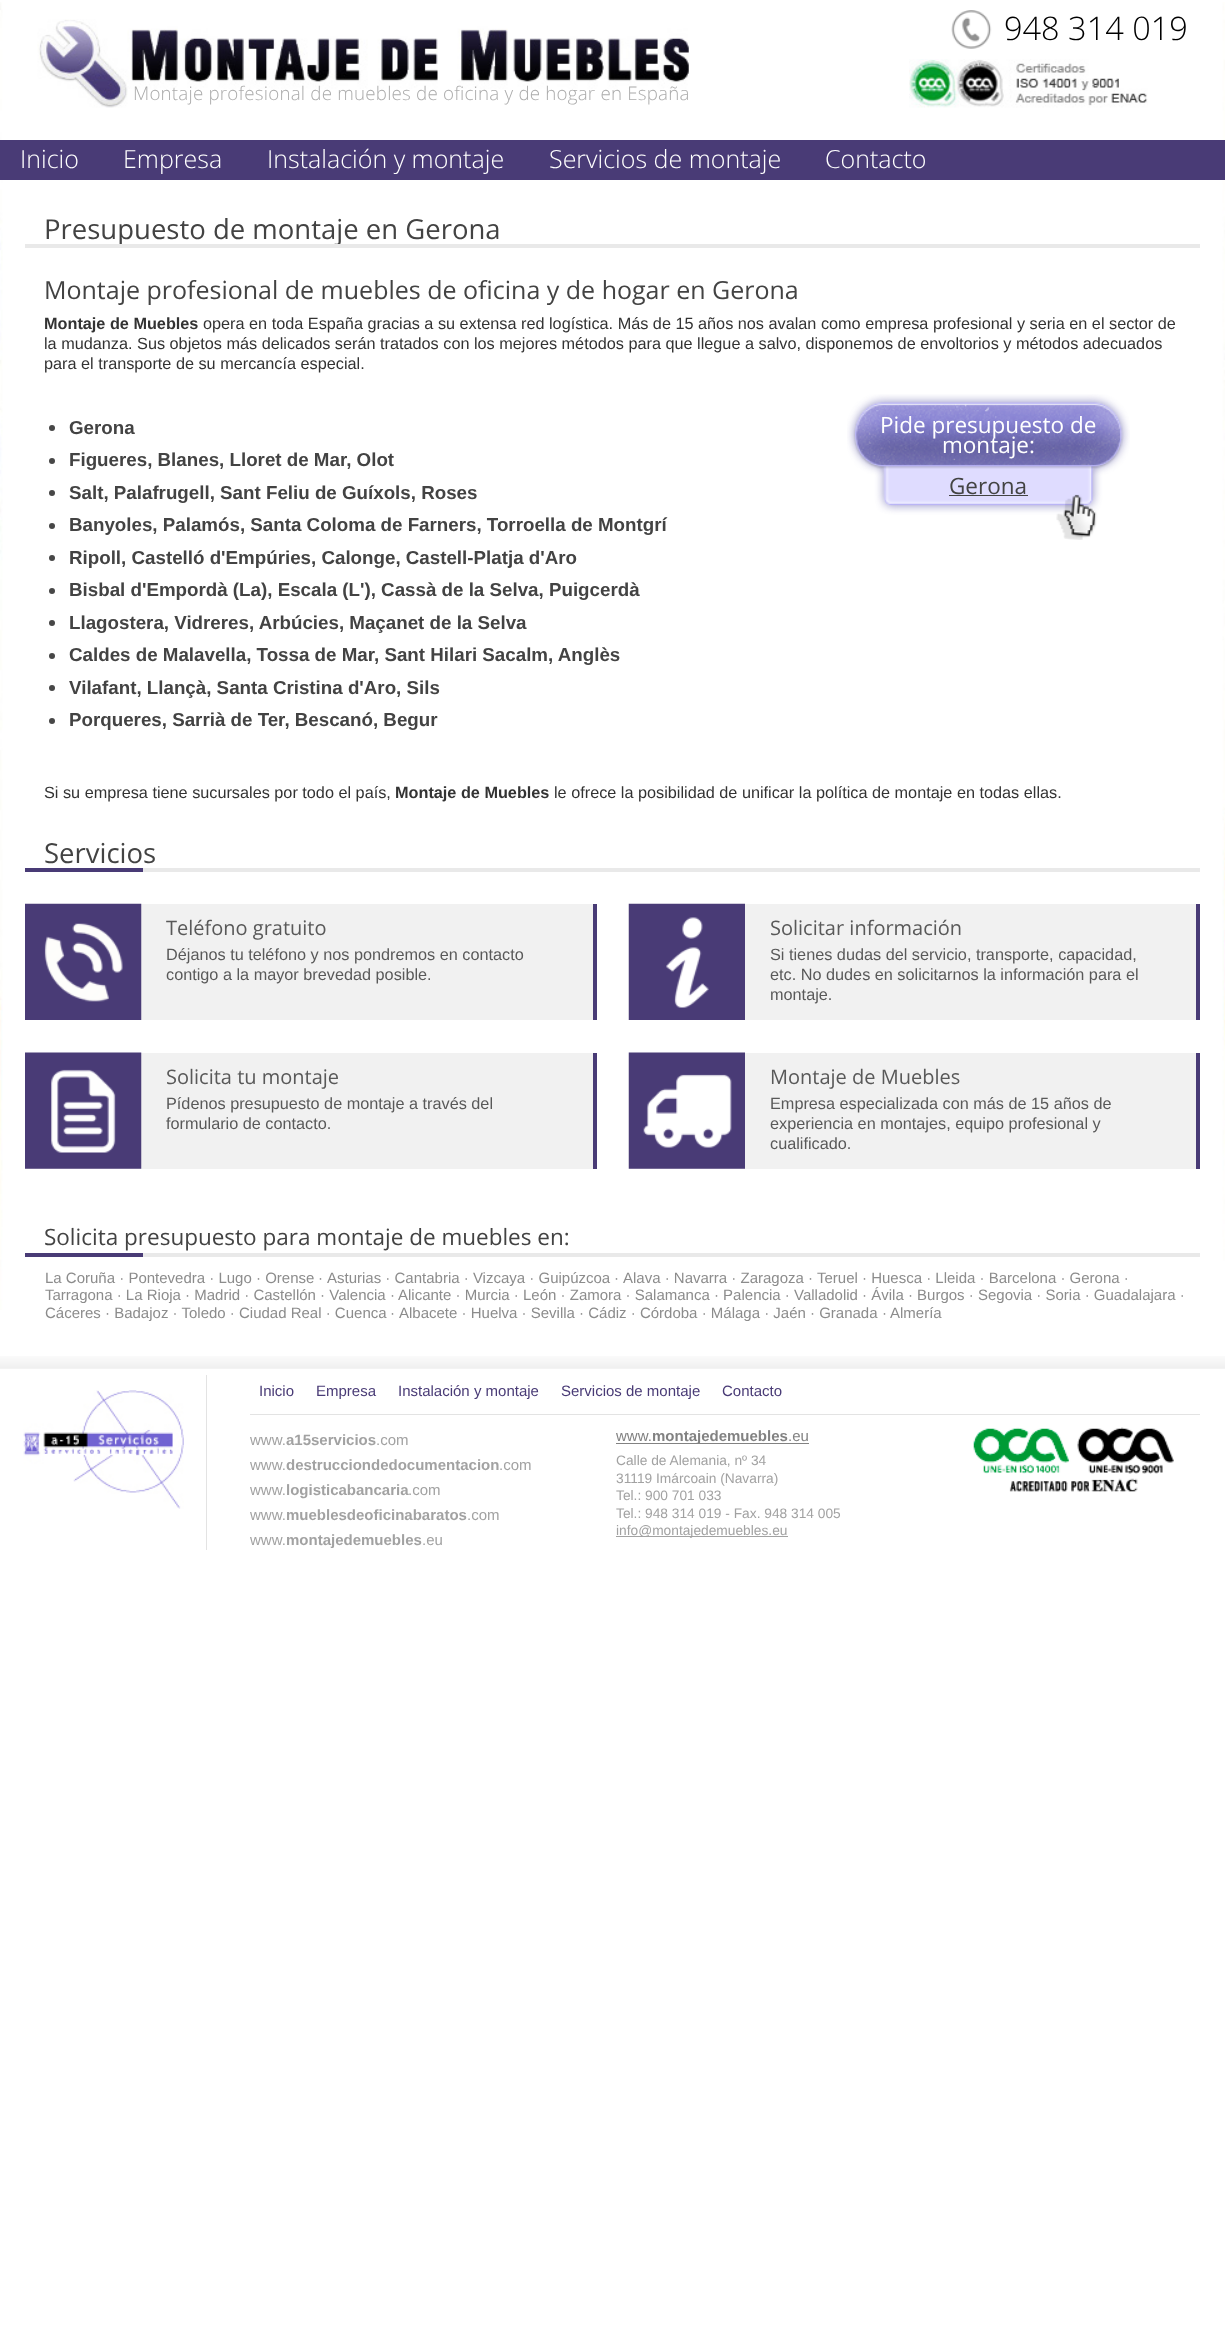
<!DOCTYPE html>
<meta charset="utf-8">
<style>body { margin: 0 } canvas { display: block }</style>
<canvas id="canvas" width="1225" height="2325"></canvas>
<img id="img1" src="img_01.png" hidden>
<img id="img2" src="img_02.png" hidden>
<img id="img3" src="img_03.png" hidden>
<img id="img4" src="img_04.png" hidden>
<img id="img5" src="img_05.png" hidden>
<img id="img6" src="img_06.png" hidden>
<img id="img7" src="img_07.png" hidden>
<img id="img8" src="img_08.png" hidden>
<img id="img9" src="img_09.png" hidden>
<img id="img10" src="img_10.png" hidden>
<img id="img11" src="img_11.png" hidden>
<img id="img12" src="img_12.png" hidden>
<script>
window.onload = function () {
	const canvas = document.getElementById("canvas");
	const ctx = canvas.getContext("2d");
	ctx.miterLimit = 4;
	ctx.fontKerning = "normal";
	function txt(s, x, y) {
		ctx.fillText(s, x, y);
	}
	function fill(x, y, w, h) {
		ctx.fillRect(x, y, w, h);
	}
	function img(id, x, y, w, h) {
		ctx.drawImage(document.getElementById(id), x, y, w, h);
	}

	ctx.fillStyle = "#FFFFFF";
	fill(0, 0, 1225, 2325);
	img("img1", 0, 2, 1225, 1308);
	img("img2", 951, 10, 41, 39);
	img("img3", 909, 59, 239, 49);
	img("img4", 37, 19, 652, 89);
	ctx.fillStyle = "#493B76";
	fill(0, 140, 1225, 40);
	ctx.fillStyle = "#474747";
	ctx.beginPath();
	ctx.arc(52, 428, 3, 0, Math.PI * 2);
	ctx.fill();
	ctx.beginPath();
	ctx.arc(52, 461, 3, 0, Math.PI * 2);
	ctx.fill();
	ctx.beginPath();
	ctx.arc(52, 493, 3, 0, Math.PI * 2);
	ctx.fill();
	ctx.beginPath();
	ctx.arc(52, 526, 3, 0, Math.PI * 2);
	ctx.fill();
	ctx.beginPath();
	ctx.arc(52, 558, 3, 0, Math.PI * 2);
	ctx.fill();
	ctx.beginPath();
	ctx.arc(52, 591, 3, 0, Math.PI * 2);
	ctx.fill();
	ctx.beginPath();
	ctx.arc(52, 623, 3, 0, Math.PI * 2);
	ctx.fill();
	ctx.beginPath();
	ctx.arc(52, 656, 3, 0, Math.PI * 2);
	ctx.fill();
	ctx.beginPath();
	ctx.arc(52, 688, 3, 0, Math.PI * 2);
	ctx.fill();
	ctx.beginPath();
	ctx.arc(52, 721, 3, 0, Math.PI * 2);
	ctx.fill();
	img("img5", 847, 394, 283, 146);
	ctx.fillStyle = "#434343";
	fill(949, 495, 79, 1);
	ctx.fillStyle = "#E9E9E9";
	fill(143, 868, 1057, 4);
	ctx.fillStyle = "#493B76";
	fill(25, 868, 118, 4);
	ctx.fillStyle = "#F1F1F1";
	fill(141, 904, 452, 116);
	ctx.fillStyle = "#493B76";
	fill(593, 904, 4, 116);
	img("img6", 25, 903, 117, 117);
	ctx.fillStyle = "#F1F1F1";
	fill(745, 904, 451, 116);
	ctx.fillStyle = "#493B76";
	fill(1196, 904, 4, 116);
	img("img7", 628, 903, 117, 117);
	ctx.fillStyle = "#F1F1F1";
	fill(25, 1053, 568, 116);
	ctx.fillStyle = "#493B76";
	fill(593, 1053, 4, 116);
	img("img8", 25, 1052, 117, 117);
	ctx.fillStyle = "#F1F1F1";
	fill(629, 1053, 567, 116);
	ctx.fillStyle = "#493B76";
	fill(1196, 1053, 4, 116);
	img("img9", 628, 1052, 117, 117);
	ctx.fillStyle = "#E9E9E9";
	fill(143, 1253, 1057, 4);
	ctx.fillStyle = "#493B76";
	fill(25, 1253, 118, 4);
	img("img10", 0, 1356, 1225, 13);
	ctx.fillStyle = "#E3E3E3";
	fill(206, 1375, 1, 175);
	img("img11", 23, 1390, 161, 119);
	fill(250, 1414, 950, 1);
	ctx.fillStyle = "#828282";
	fill(616, 1443, 193, 1);
	ctx.fillStyle = "#A2A2A2";
	fill(616, 1536, 172, 1);
	img("img12", 973, 1427, 201, 65);
	ctx.font = "300 32.5px Open Sans";
	ctx.fillStyle = "#000000";
	txt("948 314 019", 1004, 40);
	ctx.letterSpacing = "0.2px";
	ctx.font = "300 18.75px Open Sans";
	ctx.fillStyle = "#ACACAC";
	txt("Montaje profesional de muebles de oficina y de hogar en España", 133, 100);
	ctx.letterSpacing = "0px";
	ctx.font = "300 25px Open Sans";
	ctx.fillStyle = "#FFFFFF";
	txt("Inicio", 20, 168);
	txt("Empresa", 123, 168);
	txt("Instalación y montaje", 267, 168);
	txt("Servicios de montaje", 549, 168);
	txt("Contacto", 825, 168);
	ctx.font = "27.5px Open Sans";
	ctx.fillStyle = "#434343";
	txt("Presupuesto de montaje en Gerona", 44, 239);
	ctx.fillStyle = "#E9E9E9";
	fill(25, 244, 1175, 4);
	ctx.font = "25px Open Sans";
	ctx.fillStyle = "#434343";
	txt("Montaje profesional de muebles de oficina y de hogar en Gerona", 44, 299);
	ctx.font = "bold 16.25px Liberation Sans";
	ctx.fillStyle = "#333333";
	txt("Montaje de Muebles", 44, 329);
	ctx.font = "16.25px Liberation Sans";
	txt("opera en toda España gracias a su extensa red logística. Más de 15 años nos avalan como empresa profesional y seria en el sector de", 203, 329);
	txt("la mudanza. Sus objetos más delicados serán tratados con los mejores métodos para que llegue a salvo, disponemos de envoltorios y métodos adecuados", 44, 349);
	txt("para el transporte de su mercancía especial.", 44, 369);
	ctx.font = "bold 18.75px Liberation Sans";
	ctx.fillStyle = "#434343";
	txt("Gerona", 69, 434);
	txt("Figueres, Blanes, Lloret de Mar, Olot", 69, 466);
	txt("Salt, Palafrugell, Sant Feliu de Guíxols, Roses", 69, 499);
	txt("Banyoles, Palamós, Santa Coloma de Farners, Torroella de Montgrí", 69, 531);
	txt("Ripoll, Castelló d'Empúries, Calonge, Castell-Platja d'Aro", 69, 564);
	txt("Bisbal d'Empordà (La), Escala (L'), Cassà de la Selva, Puigcerdà", 69, 596);
	txt("Llagostera, Vidreres, Arbúcies, Maçanet de la Selva", 69, 629);
	txt("Caldes de Malavella, Tossa de Mar, Sant Hilari Sacalm, Anglès", 69, 661);
	txt("Vilafant, Llançà, Santa Cristina d'Aro, Sils", 69, 694);
	txt("Porqueres, Sarrià de Ter, Bescanó, Begur", 69, 726);
	ctx.font = "22.5px Open Sans";
	ctx.fillStyle = "#FFFFFF";
	txt("Pide presupuesto de", 880, 433);
	txt("montaje:", 942, 453);
	ctx.fillStyle = "#434343";
	txt("Gerona", 949, 494);
	ctx.font = "16.25px Liberation Sans";
	ctx.fillStyle = "#333333";
	txt("Si su empresa tiene sucursales por todo el país,", 44, 798);
	ctx.font = "bold 16.25px Liberation Sans";
	txt("Montaje de Muebles", 395, 798);
	ctx.font = "16.25px Liberation Sans";
	txt("le ofrece la posibilidad de unificar la política de montaje en todas ellas.", 554, 798);
	ctx.font = "27.5px Open Sans";
	ctx.fillStyle = "#434343";
	txt("Servicios", 44, 863);
	ctx.font = "20px Open Sans";
	ctx.fillStyle = "#595959";
	txt("Teléfono gratuito", 166, 935);
	ctx.font = "16.25px Liberation Sans";
	txt("Déjanos tu teléfono y nos pondremos en contacto", 166, 960);
	txt("contigo a la mayor brevedad posible.", 166, 980);
	ctx.font = "20px Open Sans";
	txt("Solicitar información", 770, 935);
	ctx.font = "16.25px Liberation Sans";
	txt("Si tienes dudas del servicio, transporte, capacidad,", 770, 960);
	txt("etc. No dudes en solicitarnos la información para el", 770, 980);
	txt("montaje.", 770, 1000);
	ctx.font = "20px Open Sans";
	txt("Solicita tu montaje", 166, 1084);
	ctx.font = "16.25px Liberation Sans";
	txt("Pídenos presupuesto de montaje a través del", 166, 1109);
	txt("formulario de contacto.", 166, 1129);
	ctx.font = "20px Open Sans";
	txt("Montaje de Muebles", 770, 1084);
	ctx.font = "16.25px Liberation Sans";
	txt("Empresa especializada con más de 15 años de", 770, 1109);
	txt("experiencia en montajes, equipo profesional y", 770, 1129);
	txt("cualificado.", 770, 1149);
	ctx.font = "22.5px Open Sans";
	ctx.fillStyle = "#434343";
	txt("Solicita presupuesto para montaje de muebles en:", 44, 1245);
	ctx.font = "15px Liberation Sans";
	ctx.fillStyle = "#8C8C8C";
	txt("La Coruña · Pontevedra · Lugo · Orense", 45, 1283);
	txt("·", 318, 1283);
	txt("Asturias · Cantabria · Vizcaya · Guipúzcoa", 327, 1283);
	txt("·", 614, 1283);
	txt("Alava · Navarra · Zaragoza · Teruel · Huesca · Lleida · Barcelona · Gerona ·", 623, 1283);
	txt("Tarragona · La Rioja · Madrid · Castellón · Valencia", 45, 1300);
	txt("·", 390, 1300);
	txt("Alicante · Murcia · León · Zamora · Salamanca · Palencia · Valladolid · Ávila · Burgos · Segovia · Soria · Guadalajara ·", 398, 1300);
	txt("Cáceres · Badajoz · Toledo · Ciudad Real · Cuenca", 45, 1318);
	txt("·", 390, 1318);
	txt("Albacete · Huelva · Sevilla · Cádiz · Córdoba · Málaga · Jaén · Granada", 399, 1318);
	txt("·", 882, 1318);
	txt("Almería", 890, 1318);
	ctx.fillStyle = "#493B76";
	txt("Inicio", 259, 1396);
	txt("Empresa", 316, 1396);
	txt("Instalación y montaje", 398, 1396);
	txt("Servicios de montaje", 561, 1396);
	txt("Contacto", 722, 1396);
	ctx.fillStyle = "#A2A2A2";
	txt("www.", 250, 1445);
	ctx.font = "bold 15px Liberation Sans";
	txt("a15servicios", 286, 1445);
	ctx.font = "15px Liberation Sans";
	txt(".com", 376, 1445);
	txt("www.", 250, 1470);
	ctx.font = "bold 15px Liberation Sans";
	txt("destrucciondedocumentacion", 286, 1470);
	ctx.font = "15px Liberation Sans";
	txt(".com", 499, 1470);
	txt("www.", 250, 1495);
	ctx.font = "bold 15px Liberation Sans";
	txt("logisticabancaria", 286, 1495);
	ctx.font = "15px Liberation Sans";
	txt(".com", 408, 1495);
	txt("www.", 250, 1520);
	ctx.font = "bold 15px Liberation Sans";
	txt("mueblesdeoficinabaratos", 286, 1520);
	ctx.font = "15px Liberation Sans";
	txt(".com", 467, 1520);
	txt("www.", 250, 1545);
	ctx.font = "bold 15px Liberation Sans";
	txt("montajedemuebles", 286, 1545);
	ctx.font = "15px Liberation Sans";
	txt(".eu", 422, 1545);
	ctx.fillStyle = "#828282";
	txt("www.", 616, 1441);
	ctx.font = "bold 15px Liberation Sans";
	txt("montajedemuebles", 652, 1441);
	ctx.font = "15px Liberation Sans";
	txt(".eu", 788, 1441);
	ctx.font = "13.75px Liberation Sans";
	ctx.fillStyle = "#A2A2A2";
	txt("Calle de Alemania, nº 34", 616, 1465);
	txt("31119 Imárcoain (Navarra)", 616, 1483);
	txt("Tel.: 900 701 033", 616, 1500);
	txt("Tel.: 948 314 019 - Fax. 948 314 005", 616, 1518);
	txt("info@montajedemuebles.eu", 616, 1535);
};
</script>
